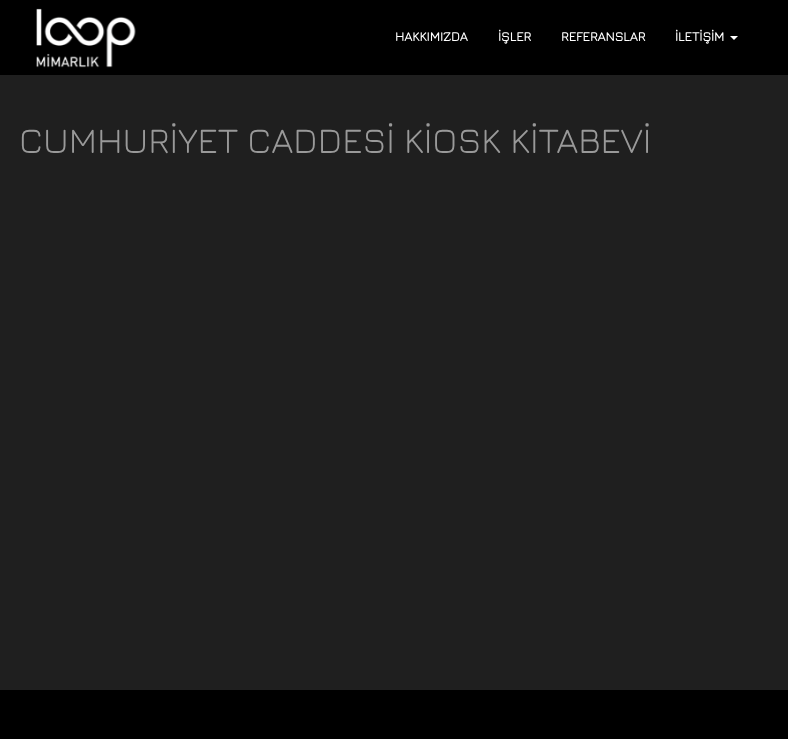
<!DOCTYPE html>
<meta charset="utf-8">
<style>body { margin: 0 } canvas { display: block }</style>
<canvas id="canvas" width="788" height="739"></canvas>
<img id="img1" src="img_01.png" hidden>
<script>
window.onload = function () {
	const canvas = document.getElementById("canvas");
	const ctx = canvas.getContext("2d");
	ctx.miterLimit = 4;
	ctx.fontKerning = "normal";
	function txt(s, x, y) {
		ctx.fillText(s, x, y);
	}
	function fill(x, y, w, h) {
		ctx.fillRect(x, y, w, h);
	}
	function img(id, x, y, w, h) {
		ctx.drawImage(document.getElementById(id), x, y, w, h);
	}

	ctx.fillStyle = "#1F1F1F";
	fill(0, 0, 788, 739);
	ctx.fillStyle = "#000000";
	fill(0, 0, 788, 75);
	img("img1", 36, 8, 100, 60);
	ctx.fillStyle = "#FFFFFF";
	ctx.beginPath();
	ctx.moveTo(730, 36);
	ctx.lineTo(738, 36);
	ctx.lineTo(734, 40);
	ctx.closePath();
	ctx.fill();
	ctx.fillStyle = "#000000";
	fill(0, 690, 788, 49);
	ctx.font = "bold 13px Jura";
	ctx.fillStyle = "#FFFFFF";
	txt("HAKKIMIZDA", 395, 41);
	txt("İŞLER", 498, 41);
	txt("REFERANSLAR", 561, 41);
	txt("İLETİŞİM", 675, 41);
	ctx.font = "300 36px Jura";
	ctx.fillStyle = "#999999";
	txt("CUMHURİYET CADDESİ KİOSK KİTABEVİ", 19, 153);
};
</script>
